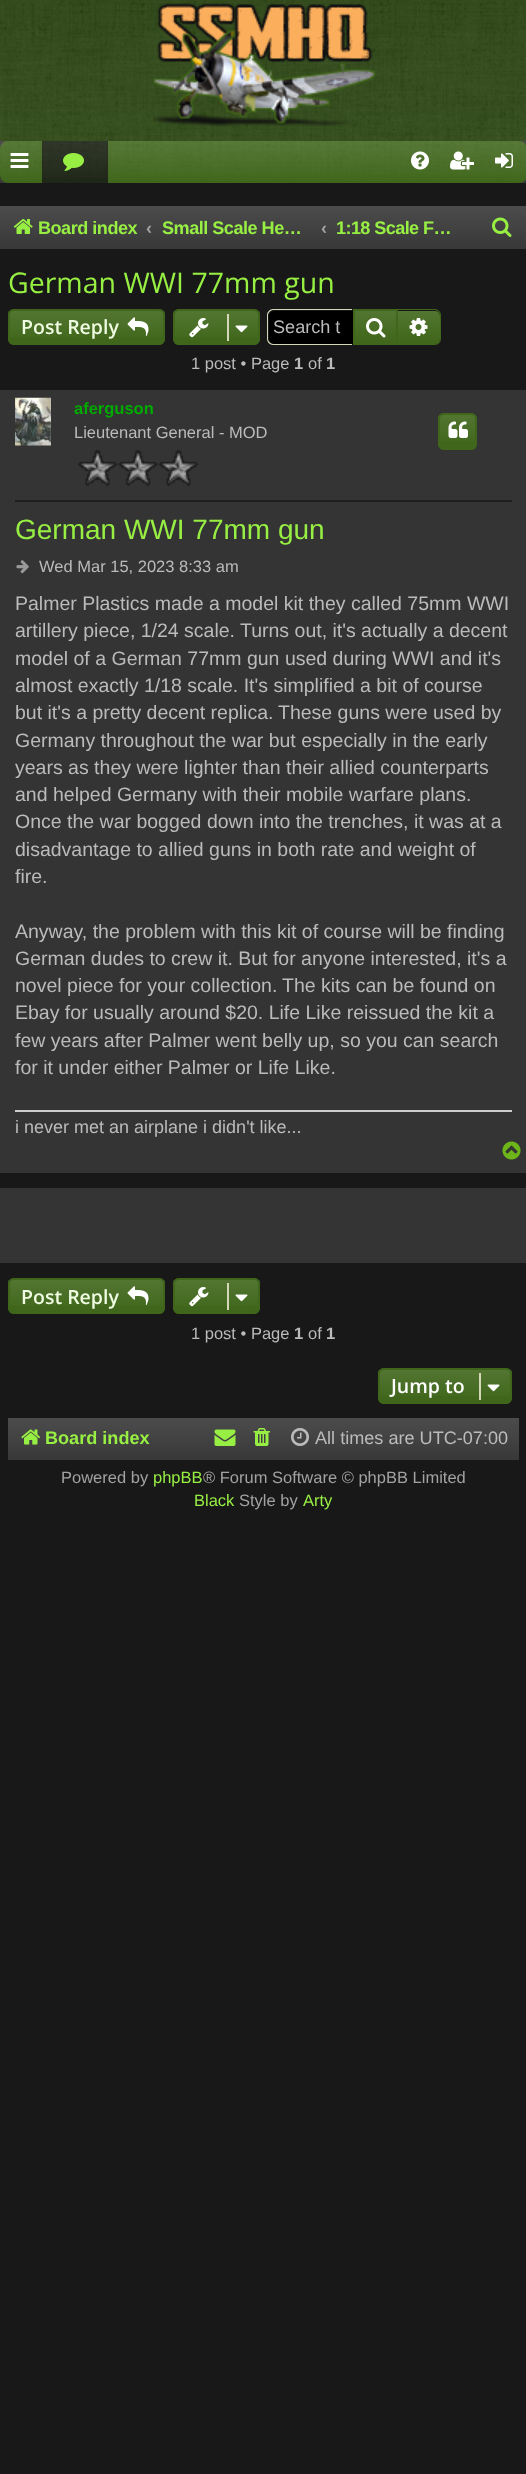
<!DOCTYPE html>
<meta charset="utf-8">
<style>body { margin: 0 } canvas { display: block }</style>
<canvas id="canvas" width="526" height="2474"></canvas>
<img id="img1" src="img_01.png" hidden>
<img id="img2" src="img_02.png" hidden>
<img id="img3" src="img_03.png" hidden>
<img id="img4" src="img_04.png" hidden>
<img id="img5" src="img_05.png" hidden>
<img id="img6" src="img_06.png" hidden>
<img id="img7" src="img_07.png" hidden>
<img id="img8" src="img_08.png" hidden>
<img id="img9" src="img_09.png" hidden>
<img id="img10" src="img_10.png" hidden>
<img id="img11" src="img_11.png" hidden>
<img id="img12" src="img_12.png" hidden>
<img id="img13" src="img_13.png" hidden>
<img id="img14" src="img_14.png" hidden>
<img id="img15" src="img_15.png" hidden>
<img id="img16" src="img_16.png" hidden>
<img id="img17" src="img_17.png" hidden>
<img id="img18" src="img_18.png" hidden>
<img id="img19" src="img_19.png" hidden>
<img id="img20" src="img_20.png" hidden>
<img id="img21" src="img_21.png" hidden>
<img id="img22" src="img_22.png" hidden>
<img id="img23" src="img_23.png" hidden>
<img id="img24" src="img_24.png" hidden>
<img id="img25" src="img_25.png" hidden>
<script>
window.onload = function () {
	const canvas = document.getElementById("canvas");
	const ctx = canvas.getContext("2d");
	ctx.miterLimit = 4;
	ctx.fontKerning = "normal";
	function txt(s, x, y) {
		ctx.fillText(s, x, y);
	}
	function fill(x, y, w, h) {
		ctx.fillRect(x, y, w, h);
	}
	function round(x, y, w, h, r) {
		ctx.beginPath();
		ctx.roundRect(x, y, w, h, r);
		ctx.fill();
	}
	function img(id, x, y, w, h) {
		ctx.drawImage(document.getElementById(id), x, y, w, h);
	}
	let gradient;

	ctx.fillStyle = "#181818";
	fill(0, 0, 526, 2474);
	ctx.fillStyle = "#3A5C1A";
	fill(0, 0, 526, 141);
	img("img1", 0, 0, 526, 141);
	img("img2", 153, 3, 223, 124);
	gradient = ctx.createLinearGradient(263, 141, 263, 183);
	gradient.addColorStop(0, "#4C4C4C");
	gradient.addColorStop(1, "#383838");
	ctx.fillStyle = gradient;
	fill(0, 141, 526, 42);
	ctx.fillStyle = "#3F661A";
	round(0, 141, 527, 42, 8);
	img("img3", 0, 141, 526, 40);
	img("img4", 10, 153, 19, 15);
	ctx.fillStyle = "#1F2718";
	fill(42, 141, 66, 42);
	img("img5", 42, 141, 66, 37);
	img("img6", 63, 153, 21, 18);
	img("img7", 411, 151, 18, 19);
	img("img8", 450, 151, 24, 19);
	img("img9", 495, 153, 18, 15);
	gradient = ctx.createLinearGradient(263, 205, 263, 249);
	gradient.addColorStop(0, "#4C4C4C");
	gradient.addColorStop(1, "#383838");
	ctx.fillStyle = gradient;
	fill(0, 206, 526, 43);
	img("img10", 13, 219, 20, 15);
	img("img11", 492, 217, 20, 20);
	ctx.fillStyle = "#3F661A";
	round(8, 309, 157, 36, 6);
	gradient = ctx.createLinearGradient(86, 311, 86, 344);
	gradient.addColorStop(0, "rgba(255, 255, 255, 0.1)");
	gradient.addColorStop(1, "rgba(255, 255, 255, 0)");
	ctx.fillStyle = gradient;
	fill(8, 311, 157, 26);
	ctx.beginPath();
	ctx.roundRect(9, 310, 155, 34, 5);
	ctx.strokeStyle = "#3F661A";
	ctx.lineWidth = 2;
	ctx.stroke();
	img("img12", 127, 317, 22, 19);
	ctx.fillStyle = "#3F661A";
	round(173, 309, 87, 36, 6);
	gradient = ctx.createLinearGradient(216, 311, 216, 344);
	gradient.addColorStop(0, "rgba(255, 255, 255, 0.1)");
	gradient.addColorStop(1, "rgba(255, 255, 255, 0)");
	ctx.fillStyle = gradient;
	fill(173, 311, 87, 26);
	ctx.beginPath();
	ctx.roundRect(174, 310, 85, 34, 5);
	ctx.stroke();
	img("img13", 189, 318, 20, 20);
	ctx.fillStyle = "#D5D8B8";
	fill(227, 314, 2, 27);
	img("img14", 235, 325, 13, 8);
	ctx.fillStyle = "#000000";
	ctx.beginPath();
	ctx.roundRect(269, 311, 84, 33, [5, 0, 0, 5]);
	ctx.fill();
	ctx.fillStyle = "#D5D8B8";
	ctx.beginPath();
	ctx.moveTo(273, 309);
	ctx.lineTo(352, 309);
	ctx.lineTo(352, 345);
	ctx.lineTo(273, 345);
	ctx.bezierCurveTo(270, 345, 267, 342, 267, 339);
	ctx.lineTo(267, 315);
	ctx.bezierCurveTo(267, 312, 270, 309, 273, 309);
	ctx.closePath();
	ctx.moveTo(273, 310);
	ctx.lineTo(352, 310);
	ctx.lineTo(352, 344);
	ctx.lineTo(273, 344);
	ctx.bezierCurveTo(271, 344, 268, 341, 268, 339);
	ctx.lineTo(268, 315);
	ctx.bezierCurveTo(268, 313, 271, 310, 273, 310);
	ctx.closePath();
	ctx.fill("evenodd");
	gradient = ctx.createLinearGradient(375, 311, 375, 344);
	gradient.addColorStop(0, "#527531");
	gradient.addColorStop(1, "#3F661A");
	ctx.fillStyle = gradient;
	fill(355, 311, 41, 32);
	ctx.strokeRect(354, 310, 43, 34);
	img("img15", 366, 318, 20, 20);
	ctx.fillStyle = "#3F661A";
	ctx.beginPath();
	ctx.roundRect(398, 311, 42, 33, [0, 5, 5, 0]);
	ctx.fill();
	gradient = ctx.createLinearGradient(419, 311, 419, 344);
	gradient.addColorStop(0, "rgba(255, 255, 255, 0.1)");
	gradient.addColorStop(1, "rgba(255, 255, 255, 0)");
	ctx.fillStyle = gradient;
	ctx.beginPath();
	ctx.roundRect(398, 311, 42, 33, [0, 5, 5, 0]);
	ctx.fill();
	ctx.fillStyle = "#3F661A";
	ctx.beginPath();
	ctx.moveTo(398, 309);
	ctx.lineTo(435, 309);
	ctx.bezierCurveTo(438, 309, 441, 312, 441, 315);
	ctx.lineTo(441, 339);
	ctx.bezierCurveTo(441, 342, 438, 345, 435, 345);
	ctx.lineTo(398, 345);
	ctx.closePath();
	ctx.moveTo(398, 310);
	ctx.lineTo(435, 310);
	ctx.bezierCurveTo(437, 310, 440, 313, 440, 315);
	ctx.lineTo(440, 339);
	ctx.bezierCurveTo(440, 341, 437, 344, 435, 344);
	ctx.lineTo(398, 344);
	ctx.closePath();
	ctx.fill("evenodd");
	img("img16", 409, 318, 19, 18);
	ctx.fillStyle = "#343434";
	fill(0, 390, 526, 783);
	ctx.fillStyle = "#1F1F1F";
	fill(15, 500, 497, 2);
	img("img17", 15, 397, 36, 49);
	img("img18", 78, 450, 121, 37);
	ctx.fillStyle = "#3F661A";
	round(438, 413, 39, 37, 6);
	ctx.save();
	ctx.beginPath();
	ctx.roundRect(438, 413, 39, 37, 6);
	ctx.clip();
	gradient = ctx.createLinearGradient(458, 414, 458, 449);
	gradient.addColorStop(0, "rgba(255, 255, 255, 0.1)");
	gradient.addColorStop(1, "rgba(255, 255, 255, 0)");
	ctx.fillStyle = gradient;
	fill(438, 414, 39, 27);
	ctx.restore();
	ctx.beginPath();
	ctx.roundRect(439, 414, 37, 35, 5);
	ctx.stroke();
	img("img19", 448, 421, 20, 17);
	img("img20", 16, 560, 13, 14);
	ctx.fillStyle = "#CCCCCC";
	fill(15, 1110, 497, 2);
	img("img21", 502, 1141, 19, 19);
	ctx.fillStyle = "#343434";
	fill(0, 1188, 526, 75);
	ctx.fillStyle = "#3F661A";
	round(8, 1278, 157, 36, 6);
	gradient = ctx.createLinearGradient(86, 1280, 86, 1313);
	gradient.addColorStop(0, "rgba(255, 255, 255, 0.1)");
	gradient.addColorStop(1, "rgba(255, 255, 255, 0)");
	ctx.fillStyle = gradient;
	fill(8, 1280, 157, 26);
	ctx.beginPath();
	ctx.roundRect(9, 1279, 155, 34, 5);
	ctx.stroke();
	img("img12", 127, 1286, 22, 19);
	ctx.fillStyle = "#3F661A";
	round(173, 1278, 87, 36, 6);
	gradient = ctx.createLinearGradient(216, 1280, 216, 1313);
	gradient.addColorStop(0, "rgba(255, 255, 255, 0.1)");
	gradient.addColorStop(1, "rgba(255, 255, 255, 0)");
	ctx.fillStyle = gradient;
	fill(173, 1280, 87, 26);
	ctx.beginPath();
	ctx.roundRect(174, 1279, 85, 34, 5);
	ctx.stroke();
	img("img13", 189, 1287, 20, 20);
	ctx.fillStyle = "#D5D8B8";
	fill(227, 1283, 2, 27);
	img("img14", 235, 1294, 13, 8);
	ctx.fillStyle = "#3F661A";
	round(378, 1368, 134, 36, 6);
	gradient = ctx.createLinearGradient(445, 1370, 445, 1403);
	gradient.addColorStop(0, "rgba(255, 255, 255, 0.1)");
	gradient.addColorStop(1, "rgba(255, 255, 255, 0)");
	ctx.fillStyle = gradient;
	fill(378, 1370, 134, 26);
	ctx.beginPath();
	ctx.roundRect(379, 1369, 132, 34, 5);
	ctx.stroke();
	ctx.fillStyle = "#D5D8B8";
	fill(479, 1373, 2, 27);
	img("img14", 487, 1384, 13, 8);
	gradient = ctx.createLinearGradient(263, 1418, 263, 1460);
	gradient.addColorStop(0, "#4C4C4C");
	gradient.addColorStop(1, "#383838");
	ctx.fillStyle = gradient;
	fill(8, 1418, 511, 42);
	img("img22", 21, 1429, 20, 16);
	img("img23", 214, 1429, 22, 17);
	img("img24", 253, 1428, 17, 18);
	img("img25", 291, 1428, 18, 18);
	ctx.letterSpacing = "-0.5px";
	ctx.font = "bold 18.1px Liberation Sans";
	ctx.fillStyle = "#98EF43";
	txt("Board index", 38, 234);
	ctx.letterSpacing = "0px";
	ctx.fillStyle = "#A2A2A2";
	txt("‹", 146, 234);
	ctx.letterSpacing = "-0.5px";
	ctx.fillStyle = "#98EF43";
	txt("Small Scale He…", 162, 234);
	ctx.letterSpacing = "0px";
	ctx.fillStyle = "#A2A2A2";
	txt("‹", 321, 234);
	ctx.letterSpacing = "-0.6px";
	ctx.fillStyle = "#98EF43";
	txt("1:18 Scale F…", 336, 234);
	ctx.letterSpacing = "0px";
	ctx.font = "28.5px Open Sans";
	txt("German WWI 77mm gun", 8, 293);
	ctx.font = "600 19.5px Open Sans";
	ctx.fillStyle = "#EFFCE2";
	txt("Post Reply", 21, 334);
	ctx.font = "18.1px Liberation Sans";
	ctx.fillStyle = "#BBBBBB";
	txt("Search t", 273, 333);
	ctx.font = "16.5px Liberation Sans";
	txt("1 post • Page", 191, 369);
	ctx.font = "bold 16.5px Liberation Sans";
	txt("1", 294, 369);
	ctx.font = "16.5px Liberation Sans";
	txt("of", 308, 369);
	ctx.font = "bold 16.5px Liberation Sans";
	txt("1", 326, 369);
	ctx.fillStyle = "#00AA00";
	txt("aferguson", 74, 414);
	ctx.font = "16.5px Liberation Sans";
	ctx.fillStyle = "#BBBBBB";
	txt("Lieutenant General - MOD", 74, 438);
	ctx.font = "28px Liberation Sans";
	ctx.fillStyle = "#98EF43";
	txt("German WWI 77mm gun", 15, 539);
	ctx.font = "16.5px Liberation Sans";
	ctx.fillStyle = "#BBBBBB";
	txt("Wed Mar 15, 2023 8:33 am", 39, 572);
	ctx.font = "19.5px Liberation Sans";
	txt("Palmer Plastics made a model kit they called 75mm WWI", 15, 610);
	txt("artillery piece, 1/24 scale.", 15, 637);
	txt("Turns out, it's actually a decent", 240, 637);
	txt("model of a German 77mm gun used during WWI and it's", 15, 665);
	txt("almost exactly 1/18 scale. It's simplified a bit of course", 15, 692);
	txt("but it's a pretty decent replica.", 15, 719);
	txt("These guns were used by", 278, 719);
	txt("Germany throughout the war but especially in the early", 15, 747);
	txt("years as they were lighter than their allied counterparts", 15, 774);
	txt("and helped Germany with their mobile warfare plans.", 15, 801);
	txt("Once the war bogged down into the trenches, it was at a", 15, 828);
	txt("disadvantage to allied guns in both rate and weight of", 15, 856);
	txt("fire.", 15, 883);
	txt("Anyway, the problem with this kit of course will be finding", 15, 938);
	txt("German dudes to crew it. But for anyone interested, it's a", 15, 965);
	txt("novel piece for your collection.", 15, 992);
	txt("The kits can be found on", 282, 992);
	txt("Ebay for usually around $20. Life Like reissued the kit a", 15, 1019);
	txt("few years after Palmer went belly up, so you can search", 15, 1047);
	txt("for it under either Palmer or Life Like.", 15, 1074);
	ctx.font = "18px Liberation Sans";
	txt("i never met an airplane i didn't like...", 15, 1133);
	ctx.font = "600 19.5px Open Sans";
	ctx.fillStyle = "#EFFCE2";
	txt("Post Reply", 21, 1304);
	ctx.font = "16.5px Liberation Sans";
	ctx.fillStyle = "#BBBBBB";
	txt("1 post • Page", 191, 1339);
	ctx.font = "bold 16.5px Liberation Sans";
	txt("1", 294, 1339);
	ctx.font = "16.5px Liberation Sans";
	txt("of", 308, 1339);
	ctx.font = "bold 16.5px Liberation Sans";
	txt("1", 326, 1339);
	ctx.font = "600 19.5px Open Sans";
	ctx.fillStyle = "#FFFFFF";
	txt("Jump to", 391, 1393);
	ctx.font = "bold 18.1px Liberation Sans";
	ctx.fillStyle = "#98EF43";
	txt("Board index", 45, 1444);
	ctx.font = "18.1px Liberation Sans";
	ctx.fillStyle = "#BBBBBB";
	txt("All times are UTC-07:00", 315, 1444);
	ctx.font = "16.5px Liberation Sans";
	ctx.fillStyle = "#A2A2A2";
	txt("Powered by", 61, 1483);
	ctx.fillStyle = "#98EF43";
	txt("phpBB", 153, 1483);
	ctx.fillStyle = "#A2A2A2";
	txt("® Forum Software © phpBB Limited", 203, 1483);
	ctx.fillStyle = "#98EF43";
	txt("Black", 194, 1506);
	ctx.fillStyle = "#A2A2A2";
	txt("Style by", 239, 1506);
	ctx.fillStyle = "#98EF43";
	txt("Arty", 303, 1506);
};
</script>
